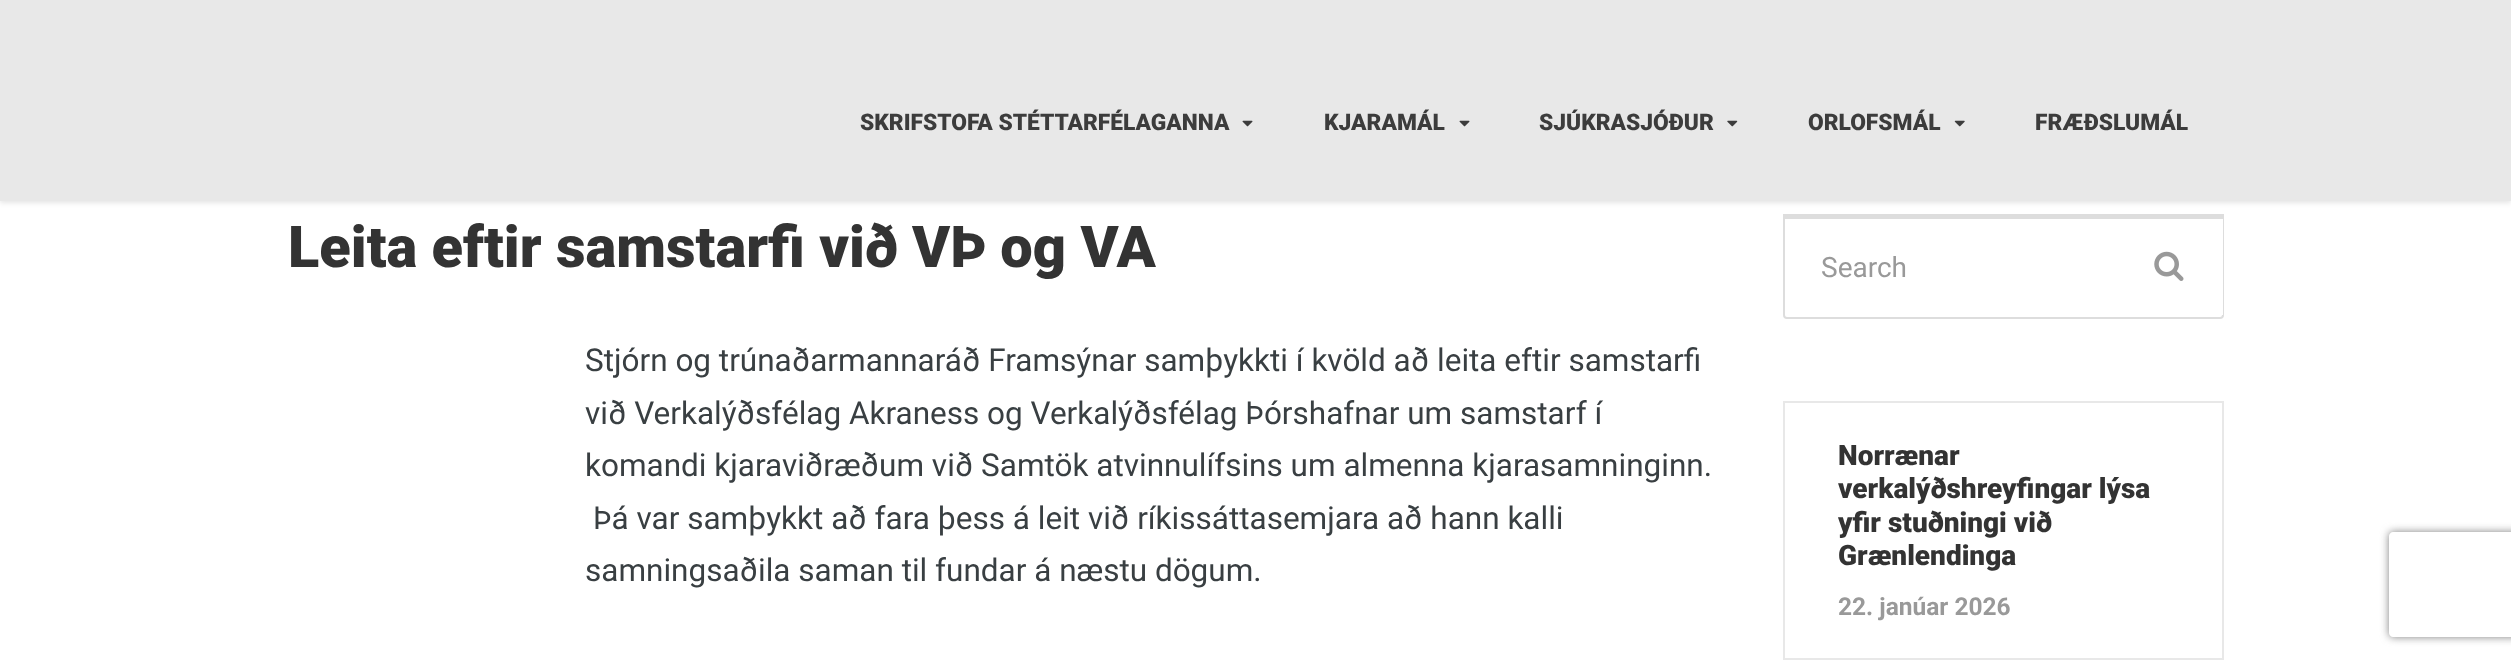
<!DOCTYPE html>
<meta charset="utf-8">
<style>body { margin: 0 } canvas { display: block }</style>
<canvas id="canvas" width="2511" height="660"></canvas>
<img id="img1" src="img_01.png" hidden>
<img id="img2" src="img_02.png" hidden>
<img id="img3" src="img_03.png" hidden>
<img id="img4" src="img_04.png" hidden>
<script>
window.onload = function () {
	const canvas = document.getElementById("canvas");
	const ctx = canvas.getContext("2d");
	ctx.miterLimit = 4;
	ctx.fontKerning = "normal";
	function txt(s, x, y) {
		ctx.fillText(s, x, y);
	}
	function fill(x, y, w, h) {
		ctx.fillRect(x, y, w, h);
	}
	function img(id, x, y, w, h) {
		ctx.drawImage(document.getElementById(id), x, y, w, h);
	}

	ctx.fillStyle = "#FFFFFF";
	fill(0, 0, 2511, 660);
	ctx.fillStyle = "rgba(0, 0, 0, 0.1)";
	ctx.filter = "blur(2.5px)";
	ctx.beginPath();
	ctx.rect(0, 2, 2511, 201);
	ctx.fill();
	ctx.filter = "none";
	ctx.fillStyle = "#E8E8E8";
	fill(0, 0, 2511, 201);
	img("img1", 1242, 120, 11, 7);
	img("img1", 1459, 120, 11, 7);
	img("img2", 1727, 120, 11, 7);
	img("img3", 1954, 120, 11, 7);
	ctx.beginPath();
	ctx.roundRect(1784, 215, 439, 103, [0, 0, 3, 3]);
	ctx.strokeStyle = "#DDDDDD";
	ctx.lineWidth = 2;
	ctx.stroke();
	ctx.fillStyle = "#DDDDDD";
	fill(1783, 216, 441, 3);
	ctx.fillStyle = "#FFFFFF";
	fill(2222, 219, 1, 96);
	img("img4", 2154, 251, 30, 30);
	ctx.strokeStyle = "#E8E8E8";
	ctx.strokeRect(1784, 402, 439, 257);
	ctx.save();
	ctx.beginPath();
	ctx.moveTo(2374, 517);
	ctx.lineTo(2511, 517);
	ctx.lineTo(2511, 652);
	ctx.lineTo(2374, 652);
	ctx.closePath();
	ctx.moveTo(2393, 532);
	ctx.lineTo(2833, 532);
	ctx.bezierCurveTo(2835, 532, 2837, 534, 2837, 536);
	ctx.lineTo(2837, 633);
	ctx.bezierCurveTo(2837, 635, 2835, 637, 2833, 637);
	ctx.lineTo(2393, 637);
	ctx.bezierCurveTo(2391, 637, 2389, 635, 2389, 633);
	ctx.lineTo(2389, 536);
	ctx.bezierCurveTo(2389, 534, 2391, 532, 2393, 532);
	ctx.closePath();
	ctx.clip("evenodd");
	ctx.fillStyle = "#808080";
	ctx.filter = "blur(4.5px)";
	ctx.beginPath();
	ctx.roundRect(2389, 532, 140, 105, 4);
	ctx.fill();
	ctx.filter = "none";
	ctx.restore();
	ctx.font = "900 22.75px Roboto";
	ctx.fillStyle = "#3C3C3C";
	txt("SKRIFSTOFA STÉTTARFÉLAGANNA", 860, 130);
	txt("KJARAMÁL", 1324, 130);
	txt("SJÚKRASJÓÐUR", 1539, 130);
	txt("ORLOFSMÁL", 1808, 130);
	txt("FRÆÐSLUMÁL", 2035, 130);
	ctx.font = "900 57.75px Roboto";
	ctx.fillStyle = "#333333";
	txt("Leita eftir samstarfi við VÞ og VA", 288, 267);
	ctx.font = "31.5px Roboto";
	ctx.fillStyle = "#393F42";
	txt("Stjórn og trúnaðarmannaráð Framsýnar samþykkti í kvöld að leita eftir samstarfi", 585, 371);
	txt("við Verkalýðsfélag Akraness og Verkalýðsfélag Þórshafnar um samstarf í", 585, 424);
	txt("komandi kjaraviðræðum við Samtök atvinnulífsins um almenna kjarasamninginn.", 585, 476);
	txt("Þá var samþykkt að fara þess á leit við ríkissáttasemjara að hann kalli", 593, 529);
	txt("samningsaðila saman til fundar á næstu dögum.", 585, 581);
	ctx.font = "28px Roboto";
	ctx.fillStyle = "#999999";
	txt("Search", 1821, 277);
	ctx.font = "900 28px Roboto";
	ctx.fillStyle = "#333333";
	txt("Norrænar", 1838, 465);
	txt("verkalýðshreyfingar lýsa", 1838, 498);
	txt("yfir stuðningi við", 1838, 532);
	txt("Grænlendinga", 1838, 565);
	ctx.font = "bold 24.5px Roboto";
	ctx.fillStyle = "#999999";
	txt("22. janúar 2026", 1838, 615);
};
</script>
